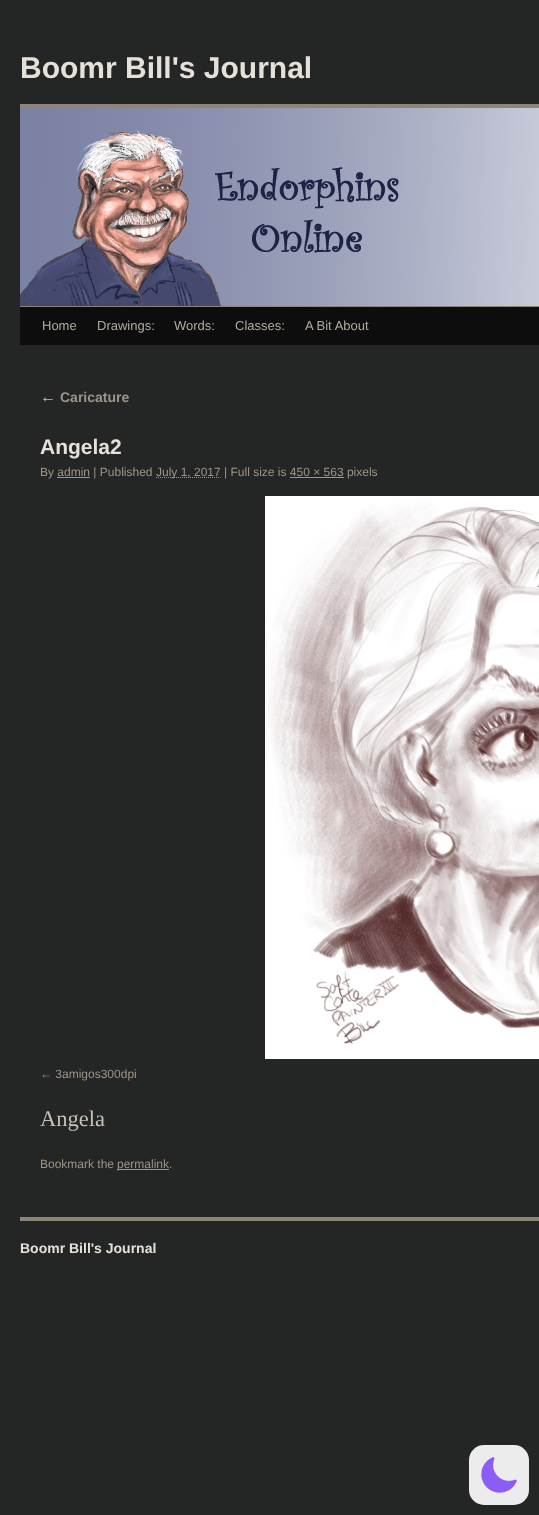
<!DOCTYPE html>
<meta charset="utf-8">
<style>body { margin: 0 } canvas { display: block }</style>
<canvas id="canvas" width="539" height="1515"></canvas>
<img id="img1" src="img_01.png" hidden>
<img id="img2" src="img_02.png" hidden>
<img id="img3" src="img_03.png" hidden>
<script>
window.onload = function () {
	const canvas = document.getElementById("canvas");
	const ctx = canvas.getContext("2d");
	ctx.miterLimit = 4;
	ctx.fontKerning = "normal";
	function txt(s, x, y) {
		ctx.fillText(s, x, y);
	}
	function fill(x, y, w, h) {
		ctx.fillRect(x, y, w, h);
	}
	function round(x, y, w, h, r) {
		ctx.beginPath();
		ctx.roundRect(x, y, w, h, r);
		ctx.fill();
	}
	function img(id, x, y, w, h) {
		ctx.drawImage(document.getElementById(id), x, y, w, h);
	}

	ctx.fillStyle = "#242525";
	fill(0, 0, 539, 1515);
	ctx.fillStyle = "#8F8475";
	fill(20, 104, 519, 4);
	fill(20, 306, 519, 1);
	img("img1", 20, 108, 519, 198);
	ctx.fillStyle = "#0D0D0D";
	fill(20, 307, 519, 38);
	ctx.beginPath();
	ctx.moveTo(156, 477.5);
	ctx.lineTo(220.5, 477.5);
	ctx.strokeStyle = "#9E9587";
	ctx.setLineDash([1, 1]);
	ctx.stroke();
	ctx.fillStyle = "#9E9587";
	fill(57, 477, 33, 1);
	fill(290, 477, 54, 1);
	img("img2", 265, 496, 274, 563);
	fill(117, 1169, 52, 1);
	ctx.fillStyle = "#8F8475";
	fill(20, 1217, 519, 4);
	ctx.fillStyle = "#ECECEC";
	round(469, 1445, 60, 60, 15);
	img("img3", 481, 1457, 36, 36);
	ctx.font = "bold 30px Liberation Sans";
	ctx.fillStyle = "#E5E0D8";
	txt("Boomr Bill's Journal", 20, 78);
	ctx.font = "13px Liberation Sans";
	ctx.fillStyle = "#B2AB9E";
	txt("Home", 42, 330);
	txt("Drawings:", 97, 330);
	txt("Words:", 174, 330);
	txt("Classes:", 235, 330);
	txt("A Bit About", 305, 330);
	ctx.font = "italic 16px Liberation Serif";
	ctx.fillStyle = "#C7C0B5";
	txt("←", 40, 402);
	ctx.font = "bold 14px Liberation Sans";
	ctx.fillStyle = "#9E9587";
	txt("Caricature", 60, 402);
	ctx.font = "bold 21px Liberation Sans";
	ctx.fillStyle = "#E5E0D8";
	txt("Angela2", 40, 454);
	ctx.font = "12px Liberation Sans";
	ctx.fillStyle = "#9E9587";
	txt("By admin | Published", 40, 476);
	txt("July 1, 2017 | Full size is 450 × 563 pixels", 156, 476);
	txt("← 3amigos300dpi", 40, 1078);
	ctx.font = "22.5px Liberation Serif";
	ctx.fillStyle = "#C7C0B5";
	txt("Angela", 40, 1126);
	ctx.font = "12px Liberation Sans";
	ctx.fillStyle = "#9E9587";
	txt("Bookmark the", 40, 1168);
	txt("permalink.", 117, 1168);
	ctx.font = "bold 14px Liberation Sans";
	ctx.fillStyle = "#E5E0D8";
	txt("Boomr Bill's Journal", 20, 1253);
};
</script>
